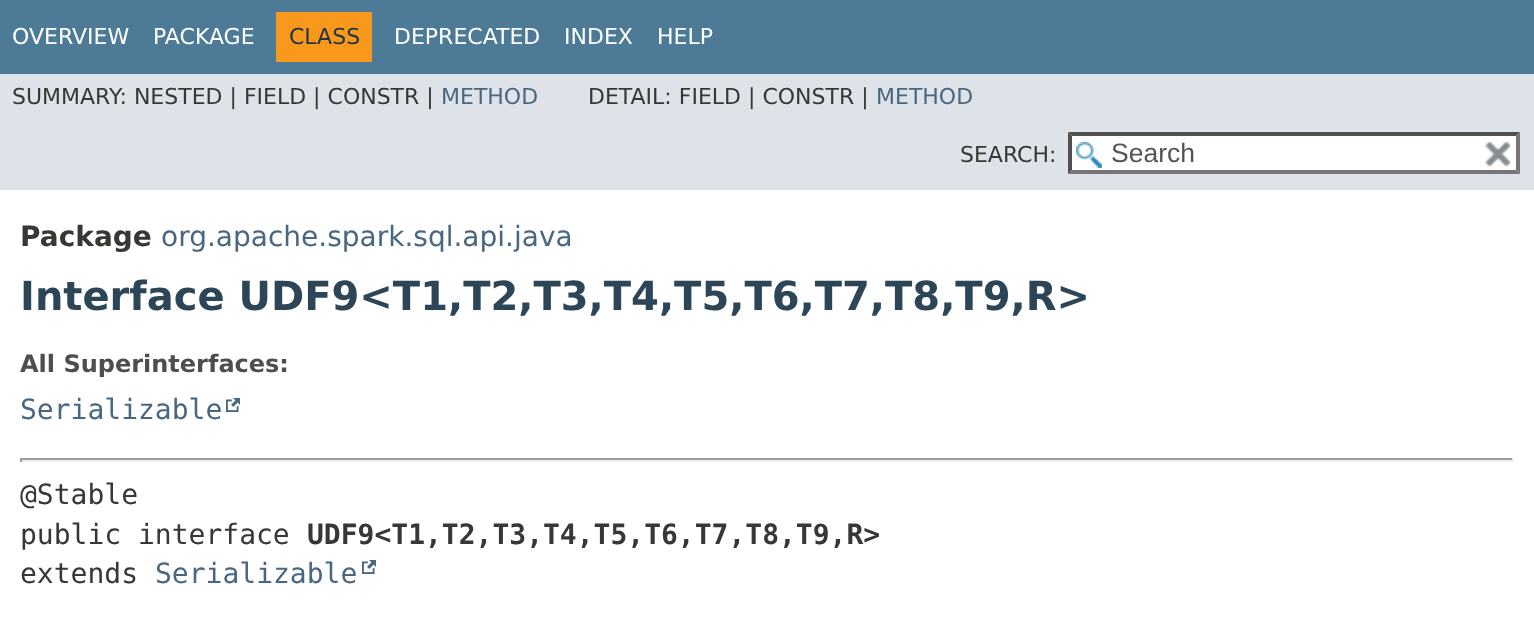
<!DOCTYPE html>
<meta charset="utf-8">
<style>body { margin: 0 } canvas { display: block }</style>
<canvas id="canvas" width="1534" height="641"></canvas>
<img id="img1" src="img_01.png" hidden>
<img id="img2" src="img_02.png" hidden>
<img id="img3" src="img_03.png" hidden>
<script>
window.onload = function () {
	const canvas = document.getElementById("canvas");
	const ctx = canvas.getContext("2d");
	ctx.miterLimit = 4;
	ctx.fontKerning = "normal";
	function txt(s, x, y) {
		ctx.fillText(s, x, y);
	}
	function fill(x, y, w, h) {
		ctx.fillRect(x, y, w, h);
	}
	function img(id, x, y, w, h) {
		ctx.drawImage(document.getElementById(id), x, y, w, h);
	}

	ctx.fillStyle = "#FFFFFF";
	fill(0, 0, 1534, 641);
	ctx.fillStyle = "#4D7A97";
	fill(0, 0, 1534, 74);
	ctx.fillStyle = "#F8981D";
	fill(276, 12, 96, 50);
	ctx.fillStyle = "#DEE3E9";
	fill(0, 74, 1534, 116);
	ctx.fillStyle = "#FFFFFF";
	fill(1068, 132, 452, 42);
	img("img1", 1076, 142, 26, 26);
	ctx.fillStyle = "#4F4F4F";
	ctx.beginPath();
	ctx.moveTo(1068, 132);
	ctx.lineTo(1520, 132);
	ctx.lineTo(1516, 136);
	ctx.lineTo(1072, 136);
	ctx.closePath();
	ctx.fill();
	ctx.fillStyle = "#767676";
	ctx.beginPath();
	ctx.moveTo(1520, 132);
	ctx.lineTo(1520, 174);
	ctx.lineTo(1516, 170);
	ctx.lineTo(1516, 136);
	ctx.closePath();
	ctx.fill();
	ctx.beginPath();
	ctx.moveTo(1520, 174);
	ctx.lineTo(1068, 174);
	ctx.lineTo(1072, 170);
	ctx.lineTo(1516, 170);
	ctx.closePath();
	ctx.fill();
	ctx.fillStyle = "#4F4F4F";
	ctx.beginPath();
	ctx.moveTo(1068, 174);
	ctx.lineTo(1068, 132);
	ctx.lineTo(1072, 136);
	ctx.lineTo(1072, 170);
	ctx.closePath();
	ctx.fill();
	img("img2", 1484, 141, 27, 26);
	img("img3", 226, 398, 14, 14);
	ctx.fillStyle = "#9F9F9F";
	fill(20, 458, 1494, 2);
	ctx.fillStyle = "#EEEEEE";
	fill(1512, 458, 2, 4);
	fill(20, 460, 1494, 2);
	ctx.fillStyle = "#9F9F9F";
	fill(20, 458, 2, 4);
	img("img3", 362, 560, 14, 14);
	ctx.font = "22px DejaVu Sans";
	ctx.fillStyle = "#FFFFFF";
	txt("OVERVIEW", 12, 44);
	txt("PACKAGE", 153, 44);
	ctx.fillStyle = "#253441";
	txt("CLASS", 289, 44);
	ctx.fillStyle = "#FFFFFF";
	txt("DEPRECATED", 394, 44);
	txt("INDEX", 564, 44);
	txt("HELP", 657, 44);
	ctx.fillStyle = "#353833";
	txt("SUMMARY: NESTED | FIELD | CONSTR |", 12, 104);
	ctx.fillStyle = "#4A6782";
	txt("METHOD", 441, 104);
	ctx.fillStyle = "#353833";
	txt("DETAIL: FIELD | CONSTR |", 588, 104);
	ctx.fillStyle = "#4A6782";
	txt("METHOD", 876, 104);
	ctx.fillStyle = "#353833";
	txt("SEARCH:", 960, 162);
	ctx.font = "26.5px Liberation Sans";
	ctx.fillStyle = "#545454";
	txt("Search", 1111, 162);
	ctx.font = "bold 28px DejaVu Sans";
	ctx.fillStyle = "#353833";
	txt("Package", 20, 246);
	ctx.font = "28px DejaVu Sans";
	ctx.fillStyle = "#4A6782";
	txt("org.apache.spark.sql.api.java", 161, 246);
	ctx.font = "bold 40px DejaVu Sans";
	ctx.fillStyle = "#2C4557";
	txt("Interface UDF9<T1,T2,T3,T4,T5,T6,T7,T8,T9,R>", 20, 310);
	ctx.font = "bold 24px DejaVu Sans";
	ctx.fillStyle = "#4E4E4E";
	txt("All Superinterfaces:", 20, 372);
	ctx.font = "28px DejaVu Sans Mono";
	ctx.fillStyle = "#4A6782";
	txt("Serializable", 20, 419);
	ctx.fillStyle = "#353833";
	txt("@Stable", 20, 504);
	txt("public interface", 20, 544);
	ctx.font = "bold 28px DejaVu Sans Mono";
	txt("UDF9<T1,T2,T3,T4,T5,T6,T7,T8,T9,R>", 307, 544);
	ctx.font = "28px DejaVu Sans Mono";
	txt("extends", 20, 583);
	ctx.fillStyle = "#4A6782";
	txt("Serializable", 155, 583);
};
</script>
